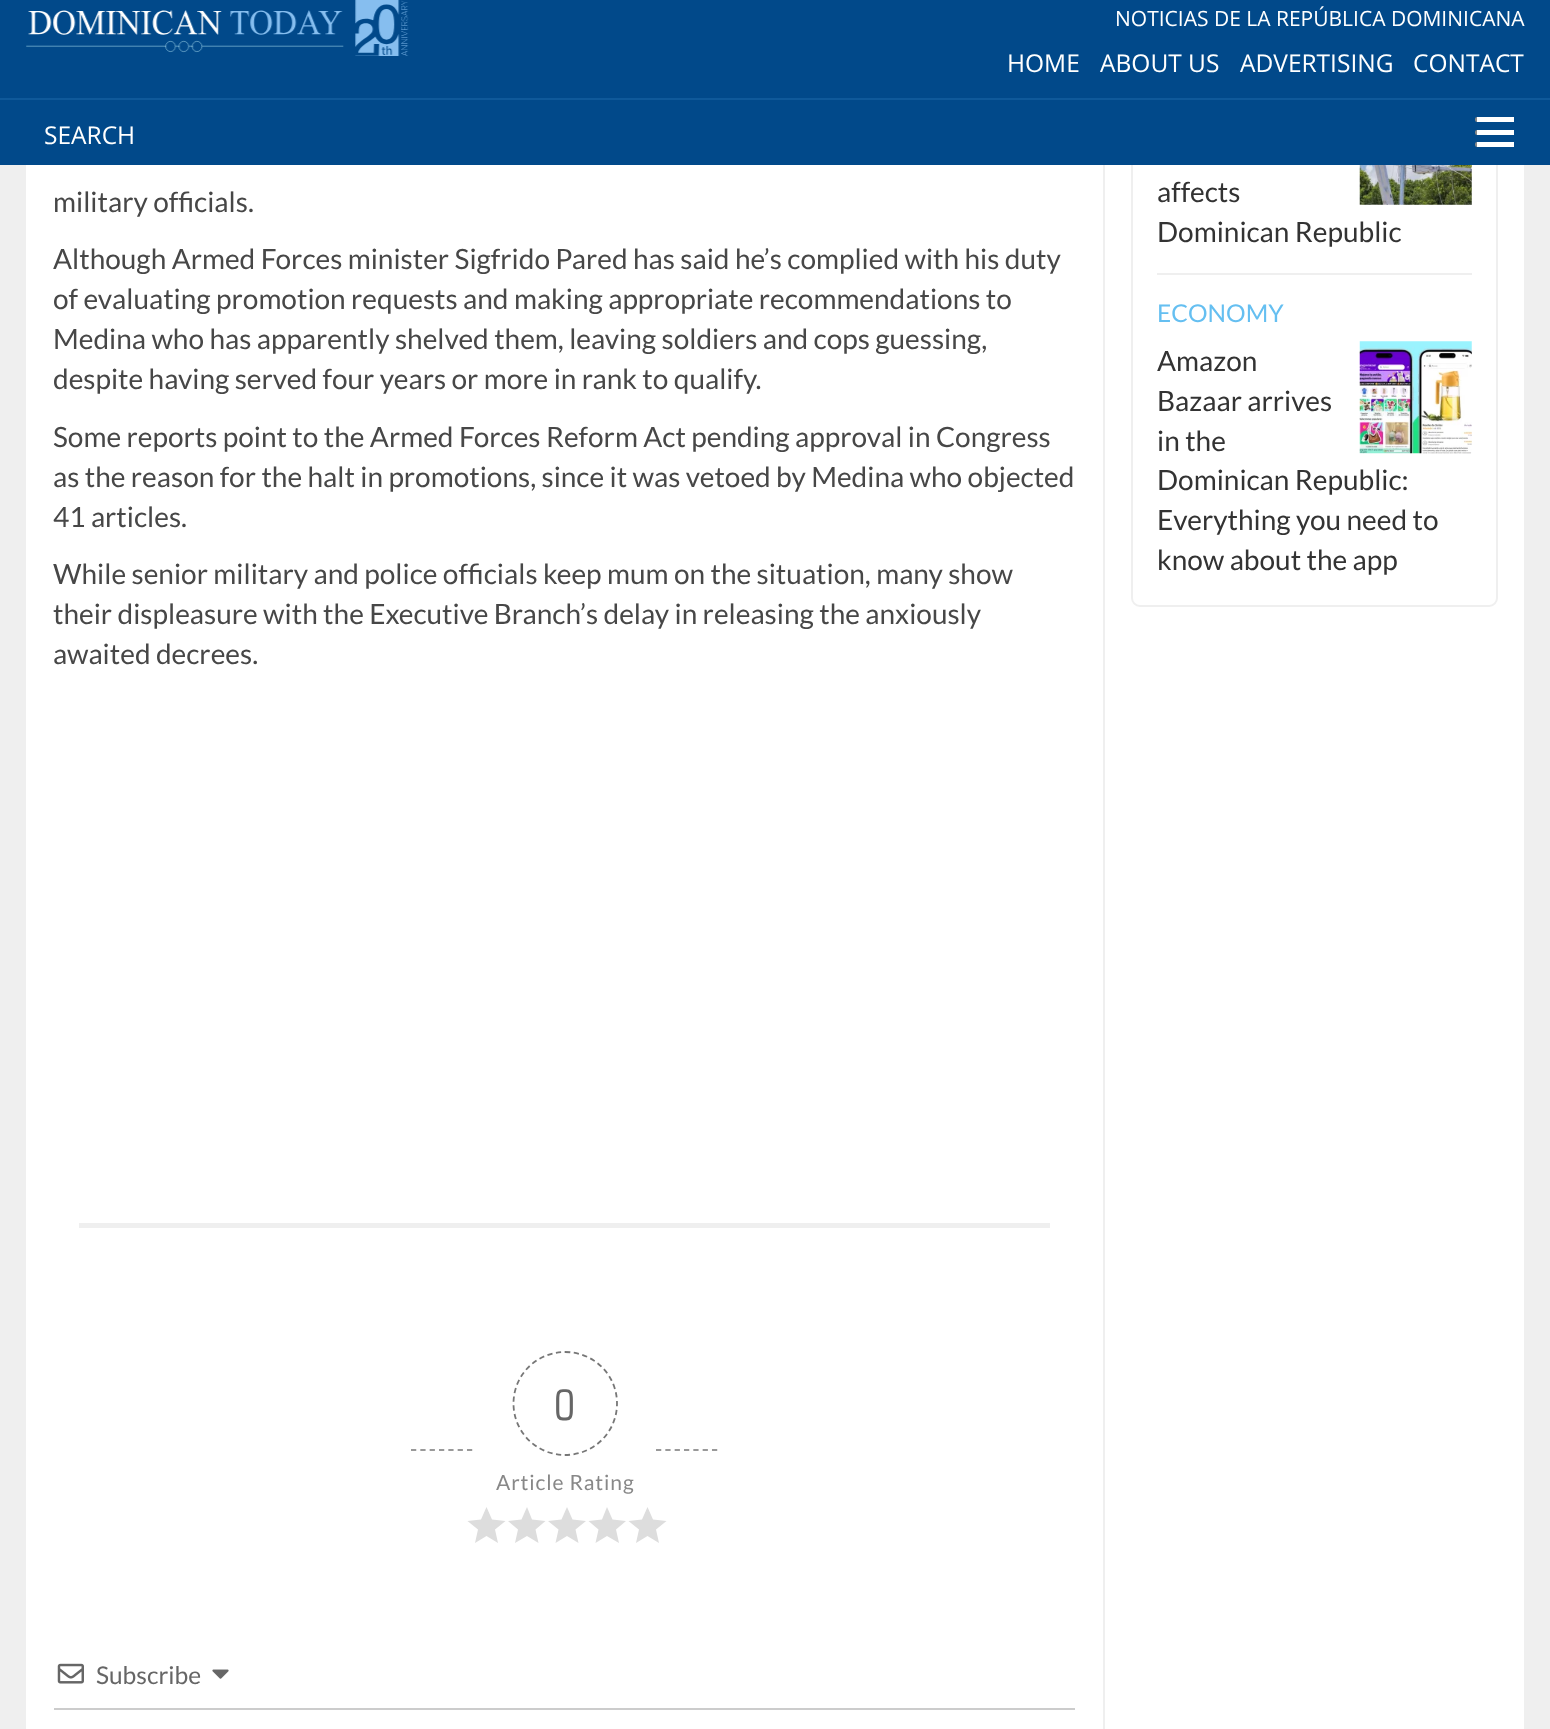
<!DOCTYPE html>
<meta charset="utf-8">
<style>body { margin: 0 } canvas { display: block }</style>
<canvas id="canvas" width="1550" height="1729"></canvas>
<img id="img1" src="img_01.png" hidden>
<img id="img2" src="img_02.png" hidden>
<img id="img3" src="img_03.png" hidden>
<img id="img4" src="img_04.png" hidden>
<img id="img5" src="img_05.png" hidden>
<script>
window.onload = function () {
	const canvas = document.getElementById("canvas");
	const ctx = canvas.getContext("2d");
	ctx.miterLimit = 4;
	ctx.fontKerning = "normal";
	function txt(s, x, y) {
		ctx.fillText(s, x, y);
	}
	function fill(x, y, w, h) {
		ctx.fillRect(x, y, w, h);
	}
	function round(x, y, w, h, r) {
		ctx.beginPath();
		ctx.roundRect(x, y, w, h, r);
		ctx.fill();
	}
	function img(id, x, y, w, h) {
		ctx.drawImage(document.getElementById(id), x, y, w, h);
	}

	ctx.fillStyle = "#EFEFEF";
	fill(0, 0, 1550, 1729);
	ctx.fillStyle = "#FFFFFF";
	fill(26, 165, 1498, 1564);
	ctx.beginPath();
	ctx.roundRect(1132, -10, 365, 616, 8);
	ctx.strokeStyle = "#EFEFEF";
	ctx.lineWidth = 2;
	ctx.stroke();
	ctx.fillStyle = "#01498A";
	fill(0, 0, 1550, 165);
	img("img1", 26, 0, 383, 56);
	ctx.fillStyle = "#0F599A";
	fill(0, 98, 1550, 2);
	ctx.fillStyle = "#888888";
	round(1475, 117, 39, 5, 2);
	ctx.fillStyle = "#FFFFFF";
	fill(1477, 117, 37, 5);
	ctx.fillStyle = "#888888";
	round(1475, 130, 39, 5, 2);
	ctx.fillStyle = "#FFFFFF";
	fill(1477, 130, 37, 5);
	ctx.fillStyle = "#888888";
	round(1475, 142, 39, 5, 2);
	ctx.fillStyle = "#FFFFFF";
	fill(1477, 142, 37, 5);
	ctx.fillStyle = "#EFEFEF";
	fill(1103, 165, 2, 1564);
	fill(79, 1223, 971, 5);
	ctx.beginPath();
	ctx.moveTo(411, 1450);
	ctx.lineTo(472.5, 1450);
	ctx.strokeStyle = "#999999";
	ctx.lineWidth = 1.8;
	ctx.setLineDash([5.25, 4.08]);
	ctx.stroke();
	ctx.beginPath();
	ctx.moveTo(565, 1352);
	ctx.bezierCurveTo(594, 1352, 617, 1375, 617, 1403.5);
	ctx.bezierCurveTo(617, 1432, 594, 1455, 565, 1455);
	ctx.bezierCurveTo(536.5, 1455, 513.5, 1432, 513.5, 1403.5);
	ctx.bezierCurveTo(513.5, 1375, 536.5, 1352, 565, 1352);
	ctx.closePath();
	ctx.strokeStyle = "#777777";
	ctx.setLineDash([5.25, 3.5]);
	ctx.stroke();
	ctx.fillStyle = "#DDDDDD";
	ctx.beginPath();
	ctx.moveTo(486.5, 1536);
	ctx.lineTo(498, 1543);
	ctx.lineTo(495, 1529.5);
	ctx.lineTo(505.5, 1521);
	ctx.lineTo(492, 1519.5);
	ctx.lineTo(486.5, 1507);
	ctx.lineTo(481, 1519.5);
	ctx.lineTo(467.5, 1521);
	ctx.lineTo(478, 1529.5);
	ctx.lineTo(475, 1543);
	ctx.closePath();
	ctx.fill();
	ctx.beginPath();
	ctx.moveTo(527, 1536);
	ctx.lineTo(538.5, 1543);
	ctx.lineTo(535.5, 1529.5);
	ctx.lineTo(545.5, 1521);
	ctx.lineTo(532, 1519.5);
	ctx.lineTo(527, 1507);
	ctx.lineTo(521.5, 1519.5);
	ctx.lineTo(508, 1521);
	ctx.lineTo(518, 1529.5);
	ctx.lineTo(515, 1543);
	ctx.closePath();
	ctx.fill();
	ctx.beginPath();
	ctx.moveTo(567, 1536);
	ctx.lineTo(578.5, 1543);
	ctx.lineTo(575.5, 1529.5);
	ctx.lineTo(586, 1521);
	ctx.lineTo(572.5, 1519.5);
	ctx.lineTo(567, 1507);
	ctx.lineTo(561.5, 1519.5);
	ctx.lineTo(548, 1521);
	ctx.lineTo(558.5, 1529.5);
	ctx.lineTo(555.5, 1543);
	ctx.closePath();
	ctx.fill();
	ctx.beginPath();
	ctx.moveTo(607, 1536);
	ctx.lineTo(619, 1543);
	ctx.lineTo(616, 1529.5);
	ctx.lineTo(626, 1521);
	ctx.lineTo(612.5, 1519.5);
	ctx.lineTo(607, 1507);
	ctx.lineTo(602, 1519.5);
	ctx.lineTo(588.5, 1521);
	ctx.lineTo(598.5, 1529.5);
	ctx.lineTo(595.5, 1543);
	ctx.closePath();
	ctx.fill();
	ctx.beginPath();
	ctx.moveTo(647.5, 1536);
	ctx.lineTo(659, 1543);
	ctx.lineTo(656, 1529.5);
	ctx.lineTo(666.5, 1521);
	ctx.lineTo(653, 1519.5);
	ctx.lineTo(647.5, 1507);
	ctx.lineTo(642, 1519.5);
	ctx.lineTo(628.5, 1521);
	ctx.lineTo(639, 1529.5);
	ctx.lineTo(636, 1543);
	ctx.closePath();
	ctx.fill();
	ctx.beginPath();
	ctx.moveTo(656, 1450);
	ctx.lineTo(717.5, 1450);
	ctx.strokeStyle = "#999999";
	ctx.setLineDash([5.25, 4.08]);
	ctx.stroke();
	ctx.fillStyle = "#CCCCCC";
	fill(54, 1708, 1021, 2);
	img("img2", 57, 1663, 27, 21);
	img("img3", 212, 1669, 17, 10);
	ctx.fillStyle = "#EFEFEF";
	fill(1157, 273, 315, 2);
	img("img4", 1359, 165, 113, 40);
	img("img5", 1359, 341, 113, 113);
	ctx.font = "21px Open Sans";
	ctx.fillStyle = "#FFFFFF";
	txt("NOTICIAS DE LA REPÚBLICA DOMINICANA", 1115, 26);
	ctx.font = "24.5px Open Sans";
	txt("HOME", 1007, 72);
	txt("ABOUT US", 1100, 72);
	txt("ADVERTISING", 1240, 72);
	txt("CONTACT", 1413, 72);
	txt("SEARCH", 44, 144);
	ctx.font = "28px Lato";
	ctx.fillStyle = "#474747";
	txt("military officials.", 53, 212);
	txt("Although Armed Forces minister Sigfrido Pared has said he’s complied with his duty", 53, 269);
	txt("of evaluating promotion requests and making appropriate recommendations to", 53, 309);
	txt("Medina who has apparently shelved them, leaving soldiers and cops guessing,", 53, 349);
	txt("despite having served four years or more in rank to qualify.", 53, 389);
	txt("Some reports point to the Armed Forces Reform Act pending approval in Congress", 53, 447);
	txt("as the reason for the halt in promotions, since it was vetoed by Medina who objected", 53, 487);
	txt("41 articles.", 53, 527);
	txt("While senior military and police officials keep mum on the situation, many show", 53, 584);
	txt("their displeasure with the Executive Branch’s delay in releasing the anxiously", 53, 624);
	txt("awaited decrees.", 53, 664);
	ctx.font = "42px 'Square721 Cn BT'";
	ctx.fillStyle = "#666666";
	txt("0", 554, 1420);
	ctx.letterSpacing = "0.9px";
	ctx.font = "21px Lato";
	ctx.fillStyle = "#888888";
	txt("Article Rating", 496, 1490);
	ctx.letterSpacing = "0px";
	ctx.font = "24.5px Lato";
	ctx.fillStyle = "#666666";
	txt("Subscribe", 96, 1684);
	ctx.font = "28px Lato";
	ctx.fillStyle = "#333333";
	txt("affects", 1157, 202);
	txt("Dominican Republic", 1157, 242);
	ctx.font = "24.5px Lato";
	ctx.fillStyle = "#65BFF1";
	txt("ECONOMY", 1157, 322);
	ctx.font = "28px Lato";
	ctx.fillStyle = "#333333";
	txt("Amazon", 1157, 371);
	txt("Bazaar arrives", 1157, 411);
	txt("in the", 1157, 451);
	txt("Dominican Republic:", 1157, 490);
	txt("Everything you need to", 1157, 530);
	txt("know about the app", 1157, 570);
};
</script>
